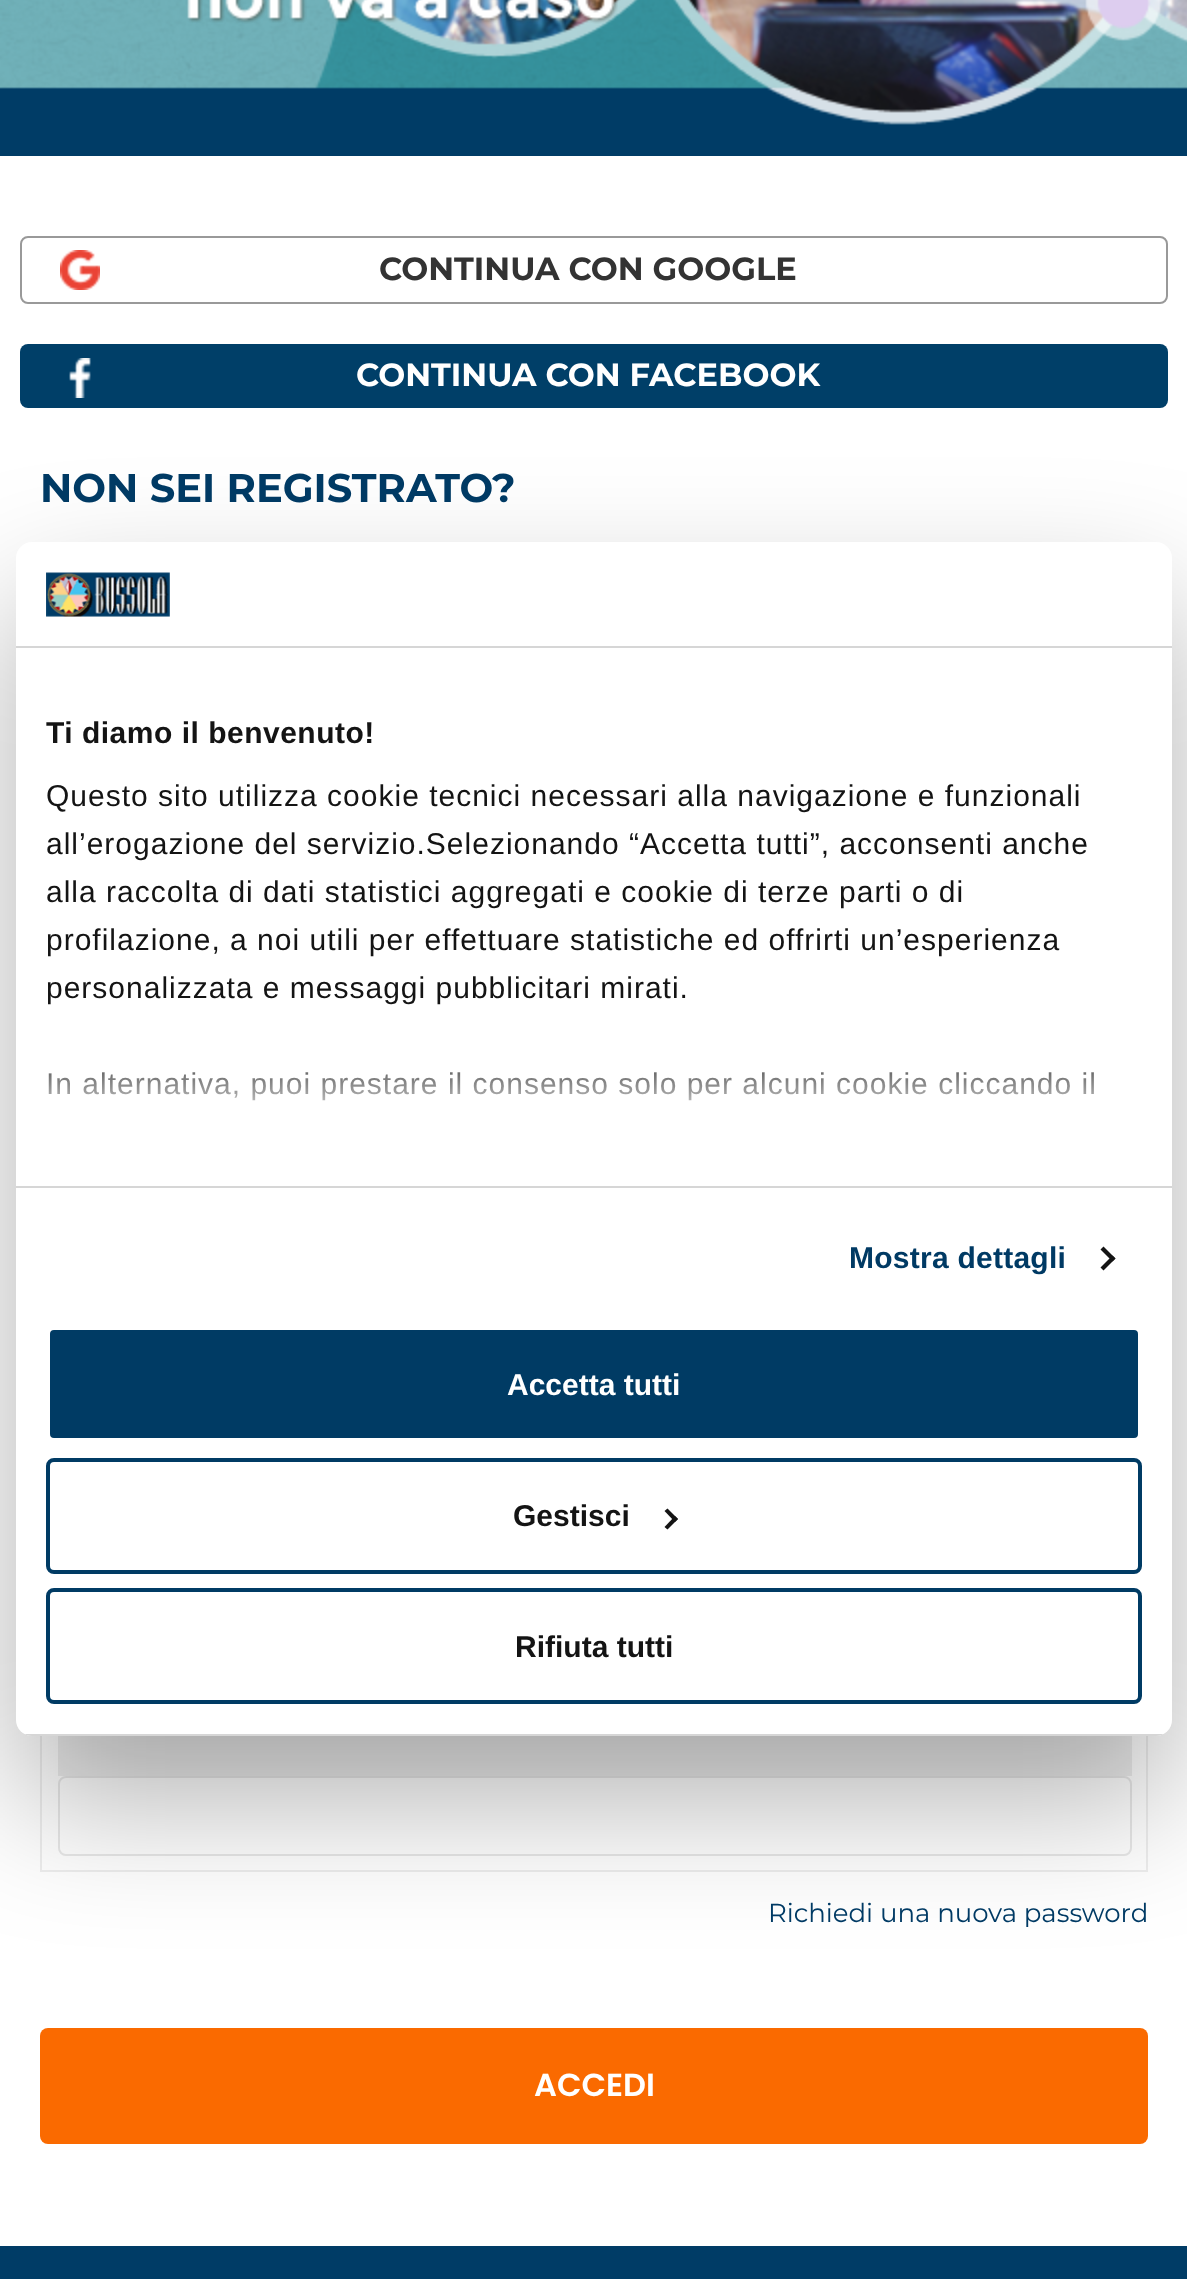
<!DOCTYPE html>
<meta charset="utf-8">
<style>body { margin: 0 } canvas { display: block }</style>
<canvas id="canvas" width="1187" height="2279"></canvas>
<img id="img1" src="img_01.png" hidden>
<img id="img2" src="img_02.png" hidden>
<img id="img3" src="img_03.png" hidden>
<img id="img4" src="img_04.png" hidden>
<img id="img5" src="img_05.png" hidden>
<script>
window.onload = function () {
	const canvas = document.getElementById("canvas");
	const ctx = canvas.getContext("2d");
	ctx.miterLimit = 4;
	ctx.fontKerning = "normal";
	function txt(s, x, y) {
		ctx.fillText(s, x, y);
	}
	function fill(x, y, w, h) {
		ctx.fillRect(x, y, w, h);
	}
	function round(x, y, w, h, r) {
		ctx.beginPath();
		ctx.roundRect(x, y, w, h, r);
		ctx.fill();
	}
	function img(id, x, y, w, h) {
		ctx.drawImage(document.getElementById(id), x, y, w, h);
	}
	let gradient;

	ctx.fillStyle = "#FFFFFF";
	fill(0, 0, 1187, 2279);
	ctx.fillStyle = "#003C66";
	fill(0, 125, 1187, 31);
	img("img1", 0, 0, 1187, 125);
	img("img2", 187, 0, 431, 24);
	ctx.beginPath();
	ctx.roundRect(21, 237, 1146, 66, 7);
	ctx.strokeStyle = "#999999";
	ctx.lineWidth = 2;
	ctx.stroke();
	img("img3", 60, 250, 40, 40);
	ctx.fillStyle = "#003F68";
	round(20, 344, 1148, 64, 8);
	img("img4", 69, 358, 22, 40);
	ctx.fillStyle = "#EEEEEE";
	fill(1146, 1736, 2, 136);
	fill(40, 1870, 1108, 2);
	fill(40, 1736, 2, 136);
	fill(58, 1736, 1074, 40);
	ctx.beginPath();
	ctx.roundRect(59, 1777, 1072, 78, 7);
	ctx.strokeStyle = "#E8E8E8";
	ctx.stroke();
	ctx.fillStyle = "#FA6A00";
	round(40, 2028, 1108, 116, 8);
	ctx.fillStyle = "#003C66";
	fill(0, 2246, 1187, 33);
	ctx.fillStyle = "rgba(0, 0, 0, 0.3)";
	ctx.filter = "blur(68px)";
	ctx.beginPath();
	ctx.roundRect(16, 606, 1156, 1194, 16);
	ctx.fill();
	ctx.filter = "none";
	ctx.fillStyle = "#FFFFFF";
	round(16, 542, 1156, 1194, 16);
	ctx.fillStyle = "#D6D6D6";
	fill(16, 646, 1156, 2);
	img("img5", 46, 572, 124, 45);
	fill(16, 1186, 1156, 2);
	ctx.fillStyle = "#141414";
	ctx.beginPath();
	ctx.moveTo(1103.5, 1246.5);
	ctx.lineTo(1115.5, 1258.5);
	ctx.lineTo(1112.5, 1261.5);
	ctx.lineTo(1100.5, 1249.5);
	ctx.closePath();
	ctx.fill();
	ctx.beginPath();
	ctx.moveTo(1112.5, 1255.5);
	ctx.lineTo(1115.5, 1258.5);
	ctx.lineTo(1103.5, 1270.5);
	ctx.lineTo(1100.5, 1267.5);
	ctx.closePath();
	ctx.fill();
	ctx.save();
	ctx.beginPath();
	ctx.roundRect(16, 542, 1156, 1194, 16);
	ctx.clip();
	ctx.fillStyle = "#D6D6D6";
	fill(16, 1734, 1156, 2);
	ctx.restore();
	ctx.fillStyle = "#003B64";
	ctx.beginPath();
	ctx.roundRect(48, 1328, 1092, 112, 6);
	ctx.fill();
	ctx.strokeStyle = "#FFFFFF";
	ctx.lineWidth = 4;
	ctx.stroke();
	ctx.beginPath();
	ctx.roundRect(48, 1460, 1092, 112, 6);
	ctx.strokeStyle = "#003B64";
	ctx.stroke();
	ctx.fillStyle = "#141414";
	ctx.beginPath();
	ctx.moveTo(667.5, 1508.5);
	ctx.lineTo(678, 1519);
	ctx.lineTo(675, 1522);
	ctx.lineTo(664.5, 1511);
	ctx.closePath();
	ctx.fill();
	ctx.beginPath();
	ctx.moveTo(675, 1516);
	ctx.lineTo(678, 1519);
	ctx.lineTo(667.5, 1529.5);
	ctx.lineTo(664.5, 1527);
	ctx.closePath();
	ctx.fill();
	ctx.beginPath();
	ctx.roundRect(48, 1590, 1092, 112, 6);
	ctx.stroke();
	ctx.font = "bold 32px Montserrat";
	ctx.fillStyle = "#333333";
	txt("CONTINUA CON GOOGLE", 379, 280);
	ctx.fillStyle = "#FFFFFF";
	txt("CONTINUA CON FACEBOOK", 356, 386);
	ctx.font = "bold 40px Montserrat";
	ctx.fillStyle = "#003A64";
	txt("NON SEI REGISTRATO?", 40, 502);
	ctx.font = "26px Montserrat";
	txt("Richiedi una nuova password", 768, 1922);
	ctx.font = "600 32px Poppins";
	ctx.fillStyle = "#FFFFFF";
	txt("ACCEDI", 534, 2096);
	ctx.letterSpacing = "0.5px";
	ctx.font = "bold 30px Liberation Sans";
	ctx.fillStyle = "#141414";
	txt("Ti diamo il benvenuto!", 46, 743);
	ctx.letterSpacing = "1px";
	ctx.font = "30px Liberation Sans";
	txt("Questo sito utilizza cookie tecnici necessari alla navigazione e funzionali", 46, 806);
	txt("all’erogazione del servizio.Selezionando “Accetta tutti”, acconsenti anche", 46, 854);
	txt("alla raccolta di dati statistici aggregati e cookie di terze parti o di", 46, 902);
	txt("profilazione, a noi utili per effettuare statistiche ed offrirti un’esperienza", 46, 950);
	txt("personalizzata e messaggi pubblicitari mirati.", 46, 998);
	txt("In alternativa, puoi prestare il consenso solo per alcuni cookie cliccando il", 46, 1094);
	gradient = ctx.createLinearGradient(581, 1187, 581, 1037);
	gradient.addColorStop(0, "#FFFFFF");
	gradient.addColorStop(0.5, "rgba(255, 255, 255, 0.8)");
	gradient.addColorStop(1, "rgba(255, 255, 255, 0)");
	ctx.fillStyle = gradient;
	fill(48, 1072, 1046, 29);
	ctx.letterSpacing = "0.25px";
	ctx.font = "bold 30px Liberation Sans";
	ctx.fillStyle = "#003A64";
	txt("Mostra dettagli", 849, 1268);
	ctx.letterSpacing = "0px";
	ctx.fillStyle = "#FFFFFF";
	txt("Accetta tutti", 507, 1395);
	ctx.fillStyle = "#141414";
	txt("Gestisci", 513, 1526);
	txt("Rifiuta tutti", 515, 1657);
};
</script>
